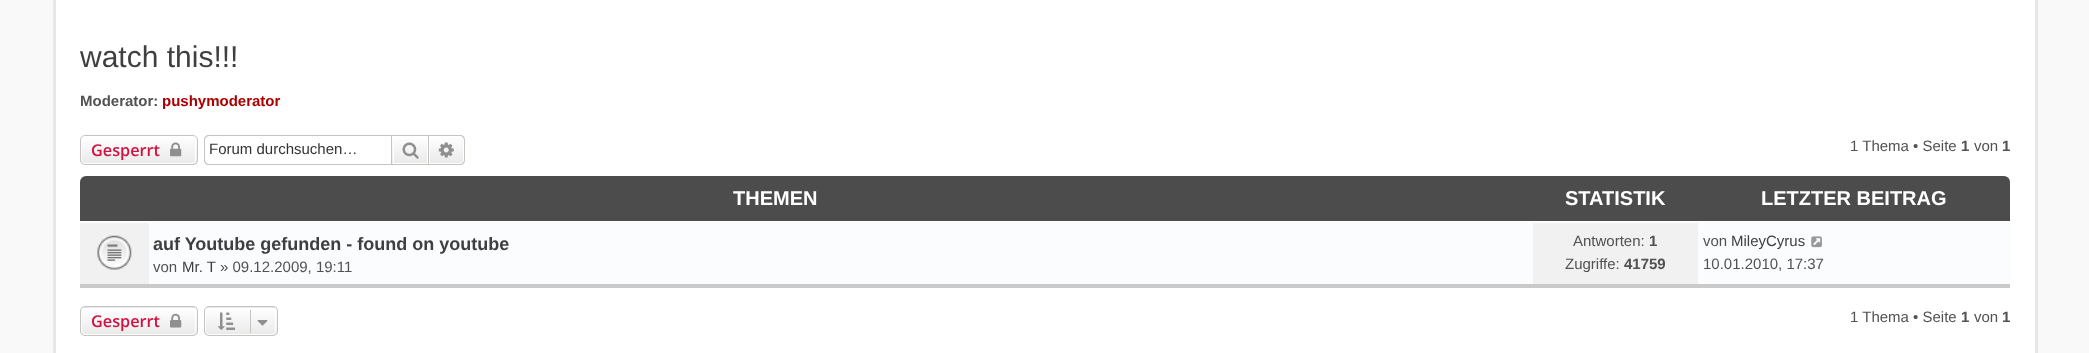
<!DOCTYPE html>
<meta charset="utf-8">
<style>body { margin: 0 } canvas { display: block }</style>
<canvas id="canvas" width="2089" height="353"></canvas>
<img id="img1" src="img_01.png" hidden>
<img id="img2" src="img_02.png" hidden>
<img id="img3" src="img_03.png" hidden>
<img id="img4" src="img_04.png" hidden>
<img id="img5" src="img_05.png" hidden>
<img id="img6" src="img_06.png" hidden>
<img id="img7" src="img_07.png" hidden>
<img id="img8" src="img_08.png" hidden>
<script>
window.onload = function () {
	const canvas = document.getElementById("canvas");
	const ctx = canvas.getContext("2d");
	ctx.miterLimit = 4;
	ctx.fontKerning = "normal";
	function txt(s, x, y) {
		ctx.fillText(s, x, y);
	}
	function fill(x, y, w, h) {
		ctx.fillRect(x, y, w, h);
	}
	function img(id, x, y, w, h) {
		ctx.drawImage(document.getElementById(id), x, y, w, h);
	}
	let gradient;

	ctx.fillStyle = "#F9F9F9";
	fill(0, 0, 2089, 353);
	ctx.fillStyle = "#FFFFFF";
	fill(56, 0, 1979, 353);
	ctx.fillStyle = "#E7E7E7";
	fill(2035, 0, 3, 353);
	fill(53, 0, 3, 353);
	ctx.save();
	ctx.beginPath();
	ctx.roundRect(80, 135, 118, 30, 5);
	ctx.clip();
	gradient = ctx.createLinearGradient(139, 136, 139, 164);
	gradient.addColorStop(0, "#FFFFFF");
	gradient.addColorStop(1, "#E9E9E9");
	ctx.fillStyle = gradient;
	fill(80, 136, 118, 28);
	ctx.restore();
	ctx.beginPath();
	ctx.roundRect(81.5, 136.5, 114, 27, 3.5);
	ctx.strokeStyle = "#FFFFFF";
	ctx.stroke();
	ctx.beginPath();
	ctx.roundRect(80.5, 135.5, 117, 29, 4.5);
	ctx.strokeStyle = "#C7C3BF";
	ctx.stroke();
	img("img1", 170, 142, 12, 15);
	ctx.fillStyle = "#C7C3BF";
	ctx.beginPath();
	ctx.moveTo(209, 135);
	ctx.lineTo(391, 135);
	ctx.lineTo(391, 165);
	ctx.lineTo(209, 165);
	ctx.bezierCurveTo(206, 165, 204, 163, 204, 160);
	ctx.lineTo(204, 140);
	ctx.bezierCurveTo(204, 137, 206, 135, 209, 135);
	ctx.closePath();
	ctx.moveTo(209, 136);
	ctx.lineTo(391, 136);
	ctx.lineTo(391, 164);
	ctx.lineTo(209, 164);
	ctx.bezierCurveTo(207, 164, 205, 162, 205, 160);
	ctx.lineTo(205, 140);
	ctx.bezierCurveTo(205, 138, 207, 136, 209, 136);
	ctx.closePath();
	ctx.fill("evenodd");
	gradient = ctx.createLinearGradient(410, 136, 410, 164);
	gradient.addColorStop(0, "#FFFFFF");
	gradient.addColorStop(1, "#E9E9E9");
	ctx.fillStyle = gradient;
	fill(392, 139, 35, 25);
	ctx.strokeStyle = "#FFFFFF";
	ctx.strokeRect(393.5, 136.5, 34, 27);
	ctx.strokeStyle = "#C7C3BF";
	ctx.strokeRect(391.5, 135.5, 37, 29);
	img("img2", 402, 142, 17, 17);
	gradient = ctx.createLinearGradient(446, 136, 446, 164);
	gradient.addColorStop(0, "#FFFFFF");
	gradient.addColorStop(1, "#E9E9E9");
	ctx.fillStyle = gradient;
	ctx.beginPath();
	ctx.roundRect(429.5, 136.5, 34, 27, [0, 3.5, 3.5, 0]);
	ctx.fill();
	ctx.strokeStyle = "#FFFFFF";
	ctx.stroke();
	ctx.fillStyle = "#C7C3BF";
	ctx.beginPath();
	ctx.moveTo(429, 135);
	ctx.lineTo(460, 135);
	ctx.bezierCurveTo(463, 135, 465, 137, 465, 140);
	ctx.lineTo(465, 160);
	ctx.bezierCurveTo(465, 163, 463, 165, 460, 165);
	ctx.lineTo(429, 165);
	ctx.closePath();
	ctx.moveTo(429, 136);
	ctx.lineTo(460, 136);
	ctx.bezierCurveTo(462, 136, 464, 138, 464, 140);
	ctx.lineTo(464, 160);
	ctx.bezierCurveTo(464, 162, 462, 164, 460, 164);
	ctx.lineTo(429, 164);
	ctx.closePath();
	ctx.fill("evenodd");
	img("img3", 438, 142, 16, 16);
	ctx.fillStyle = "#4C4C4C";
	ctx.beginPath();
	ctx.roundRect(80, 176, 1930, 112, [6, 6, 0, 0]);
	ctx.fill();
	ctx.fillStyle = "#CACACA";
	fill(80, 284, 1930, 4);
	ctx.fillStyle = "#FAFCFE";
	fill(80, 222, 1930, 62);
	ctx.fillStyle = "#FFFFFF";
	fill(80, 221, 1930, 1);
	ctx.fillStyle = "#F1F1F1";
	fill(80, 223, 69, 61);
	img("img4", 97, 235, 35, 35);
	fill(1533, 223, 165, 61);
	img("img5", 1811, 236, 11, 12);
	ctx.save();
	ctx.beginPath();
	ctx.roundRect(80, 306, 118, 30, 5);
	ctx.clip();
	gradient = ctx.createLinearGradient(139, 280, 139, 308);
	gradient.addColorStop(0, "#FFFFFF");
	gradient.addColorStop(1, "#E9E9E9");
	ctx.fillStyle = gradient;
	fill(80, 306, 118, 2);
	gradient = ctx.createLinearGradient(139, 308, 139, 335);
	gradient.addColorStop(0, "#FFFFFF");
	gradient.addColorStop(1, "#E9E9E9");
	ctx.fillStyle = gradient;
	fill(80, 308, 118, 27);
	ctx.restore();
	ctx.beginPath();
	ctx.roundRect(81.5, 308.5, 114, 26, 3.5);
	ctx.stroke();
	ctx.beginPath();
	ctx.roundRect(80.5, 306.5, 117, 29, 4.5);
	ctx.strokeStyle = "#C7C3BF";
	ctx.stroke();
	img("img6", 170, 313, 12, 15);
	ctx.save();
	ctx.beginPath();
	ctx.roundRect(204, 306, 74, 30, 5);
	ctx.clip();
	gradient = ctx.createLinearGradient(241, 280, 241, 308);
	gradient.addColorStop(0, "#FFFFFF");
	gradient.addColorStop(1, "#E9E9E9");
	ctx.fillStyle = gradient;
	fill(204, 306, 74, 2);
	gradient = ctx.createLinearGradient(241, 308, 241, 335);
	gradient.addColorStop(0, "#FFFFFF");
	gradient.addColorStop(1, "#E9E9E9");
	ctx.fillStyle = gradient;
	fill(204, 308, 74, 27);
	ctx.restore();
	ctx.beginPath();
	ctx.roundRect(205.5, 308.5, 70, 26, 3.5);
	ctx.strokeStyle = "#FFFFFF";
	ctx.stroke();
	ctx.beginPath();
	ctx.roundRect(204.5, 306.5, 73, 29, 4.5);
	ctx.strokeStyle = "#C7C3BF";
	ctx.stroke();
	img("img7", 217, 312, 18, 18);
	ctx.fillStyle = "#C7C3BF";
	fill(250, 310, 1, 23);
	img("img8", 257, 320, 11, 6);
	ctx.font = "30px Liberation Sans";
	ctx.fillStyle = "#3F3F3F";
	txt("watch this!!!", 80, 67);
	ctx.font = "bold 15px Liberation Sans";
	ctx.fillStyle = "#525252";
	txt("Moderator:", 80, 106);
	ctx.fillStyle = "#AA0000";
	txt("pushymoderator", 162, 106);
	ctx.font = "600 16.25px Open Sans";
	ctx.fillStyle = "#D31141";
	txt("Gesperrt", 91, 156);
	ctx.font = "15px Liberation Sans";
	ctx.fillStyle = "#333333";
	txt("Forum durchsuchen…", 209, 154);
	ctx.fillStyle = "#525252";
	txt("1 Thema • Seite", 1850, 151);
	ctx.font = "bold 15px Liberation Sans";
	txt("1", 1961, 151);
	ctx.font = "15px Liberation Sans";
	txt("von", 1974, 151);
	ctx.font = "bold 15px Liberation Sans";
	txt("1", 2002, 151);
	ctx.font = "bold 20px Liberation Sans";
	ctx.fillStyle = "#FFFFFF";
	txt("THEMEN", 733, 205);
	txt("STATISTIK", 1565, 205);
	txt("LETZTER BEITRAG", 1761, 205);
	ctx.font = "bold 18px Liberation Sans";
	ctx.fillStyle = "#3F3F3F";
	txt("auf Youtube gefunden - found on youtube", 153, 250);
	ctx.font = "15px Liberation Sans";
	ctx.fillStyle = "#525252";
	txt("von", 153, 272);
	ctx.fillStyle = "#3F3F3F";
	txt("Mr. T", 182, 272);
	ctx.fillStyle = "#525252";
	txt("» 09.12.2009, 19:11", 220, 272);
	txt("Antworten:", 1573, 246);
	ctx.font = "bold 15px Liberation Sans";
	txt("1", 1649, 246);
	ctx.font = "15px Liberation Sans";
	txt("Zugriffe:", 1565, 269);
	ctx.font = "bold 15px Liberation Sans";
	txt("41759", 1624, 269);
	ctx.font = "15px Liberation Sans";
	txt("von", 1703, 246);
	ctx.fillStyle = "#3F3F3F";
	txt("MileyCyrus", 1731, 246);
	ctx.fillStyle = "#525252";
	txt("10.01.2010, 17:37", 1703, 269);
	ctx.font = "600 16.25px Open Sans";
	ctx.fillStyle = "#D31141";
	txt("Gesperrt", 91, 327);
	ctx.font = "15px Liberation Sans";
	ctx.fillStyle = "#525252";
	txt("1 Thema • Seite", 1850, 322);
	ctx.font = "bold 15px Liberation Sans";
	txt("1", 1961, 322);
	ctx.font = "15px Liberation Sans";
	txt("von", 1974, 322);
	ctx.font = "bold 15px Liberation Sans";
	txt("1", 2002, 322);
};
</script>
